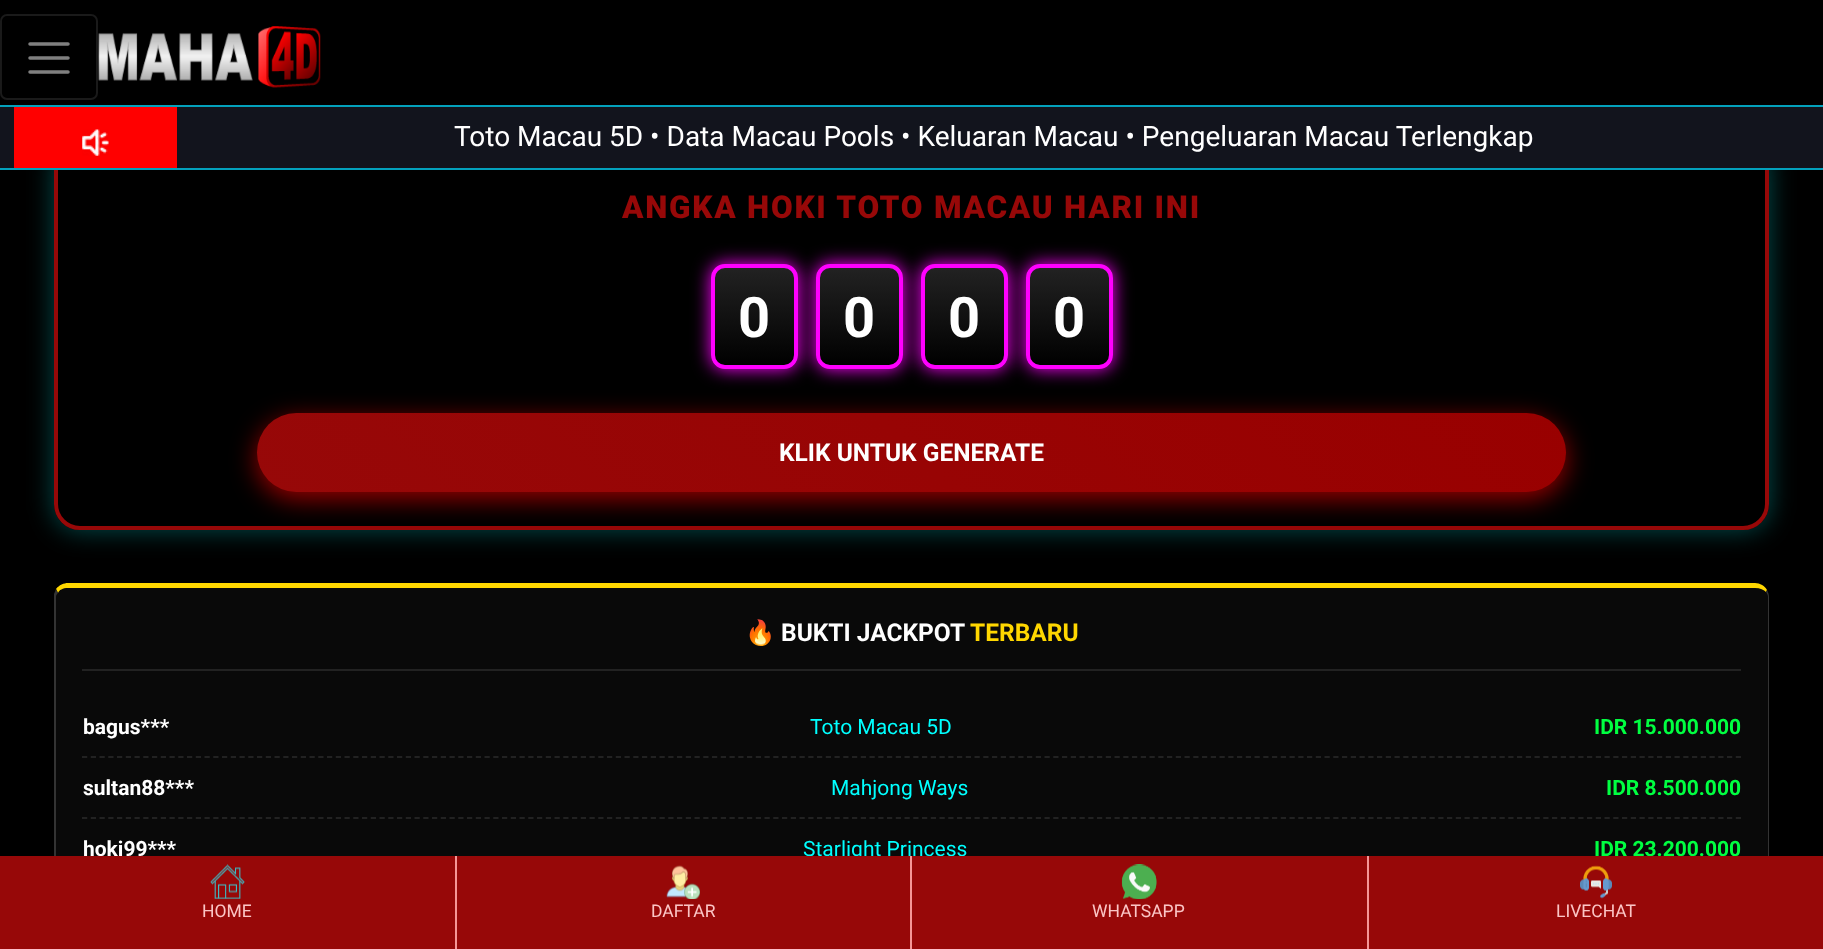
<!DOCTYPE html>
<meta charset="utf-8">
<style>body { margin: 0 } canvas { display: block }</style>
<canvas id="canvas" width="1823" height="949"></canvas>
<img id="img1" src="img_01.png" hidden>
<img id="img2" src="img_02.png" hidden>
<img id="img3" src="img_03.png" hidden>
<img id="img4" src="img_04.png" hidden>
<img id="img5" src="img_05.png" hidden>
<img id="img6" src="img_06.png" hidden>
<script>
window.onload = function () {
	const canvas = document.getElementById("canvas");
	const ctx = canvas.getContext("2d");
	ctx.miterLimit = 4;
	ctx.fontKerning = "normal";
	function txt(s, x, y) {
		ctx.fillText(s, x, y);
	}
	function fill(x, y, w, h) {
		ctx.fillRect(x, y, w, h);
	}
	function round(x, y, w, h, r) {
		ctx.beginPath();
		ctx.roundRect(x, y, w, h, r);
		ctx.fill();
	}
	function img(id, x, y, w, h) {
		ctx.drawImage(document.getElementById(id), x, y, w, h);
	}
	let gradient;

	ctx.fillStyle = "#000000";
	fill(0, 0, 1823, 949);
	ctx.beginPath();
	ctx.roundRect(1, 15, 96, 84, 6);
	ctx.strokeStyle = "#1A1A1A";
	ctx.lineWidth = 2;
	ctx.stroke();
	ctx.beginPath();
	ctx.moveTo(30, 44);
	ctx.lineTo(68, 44);
	ctx.moveTo(30, 58);
	ctx.lineTo(68, 58);
	ctx.moveTo(30, 72);
	ctx.lineTo(68, 72);
	ctx.strokeStyle = "#808080";
	ctx.lineWidth = 3.5;
	ctx.lineCap = "round";
	ctx.stroke();
	img("img1", 98, 26, 223, 62);
	ctx.save();
	ctx.beginPath();
	ctx.moveTo(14, 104);
	ctx.lineTo(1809, 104);
	ctx.lineTo(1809, 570);
	ctx.lineTo(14, 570);
	ctx.closePath();
	ctx.moveTo(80, 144);
	ctx.lineTo(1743, 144);
	ctx.bezierCurveTo(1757.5, 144, 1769, 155.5, 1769, 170);
	ctx.lineTo(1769, 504);
	ctx.bezierCurveTo(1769, 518.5, 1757.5, 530, 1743, 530);
	ctx.lineTo(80, 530);
	ctx.bezierCurveTo(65.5, 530, 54, 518.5, 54, 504);
	ctx.lineTo(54, 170);
	ctx.bezierCurveTo(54, 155.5, 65.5, 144, 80, 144);
	ctx.closePath();
	ctx.clip("evenodd");
	ctx.fillStyle = "rgba(0, 255, 255, 0.3)";
	ctx.filter = "blur(13px)";
	ctx.beginPath();
	ctx.roundRect(54, 144, 1715, 386, 26);
	ctx.fill();
	ctx.filter = "none";
	ctx.restore();
	ctx.fillStyle = "#03A1BC";
	fill(0, 105, 1823, 2);
	ctx.fillStyle = "rgba(0, 0, 0, 0.6)";
	ctx.beginPath();
	ctx.roundRect(56, 146, 1711, 382, 24);
	ctx.fill();
	ctx.strokeStyle = "#970808";
	ctx.lineWidth = 4;
	ctx.stroke();
	ctx.fillStyle = "#03A1BC";
	fill(0, 168, 1823, 2);
	ctx.fillStyle = "#12141D";
	fill(0, 107, 1823, 61);
	ctx.fillStyle = "#FF0000";
	fill(14, 107, 163, 61);
	img("img2", 82, 129, 27, 27);
	ctx.fillStyle = "#FF00FF";
	ctx.filter = "blur(9px)";
	ctx.beginPath();
	ctx.roundRect(711, 264, 87, 105, 14);
	ctx.fill();
	ctx.filter = "none";
	ctx.save();
	ctx.beginPath();
	ctx.roundRect(711, 264, 87, 105, 14);
	ctx.clip();
	gradient = ctx.createLinearGradient(754, 268, 754, 366);
	gradient.addColorStop(0, "#222222");
	gradient.addColorStop(1, "#000000");
	ctx.fillStyle = gradient;
	fill(711, 268, 87, 98);
	ctx.restore();
	ctx.beginPath();
	ctx.roundRect(713, 266, 83, 101, 12);
	ctx.strokeStyle = "#FF00FF";
	ctx.stroke();
	ctx.filter = "blur(9px)";
	ctx.beginPath();
	ctx.roundRect(816, 264, 87, 105, 14);
	ctx.fill();
	ctx.filter = "none";
	ctx.save();
	ctx.beginPath();
	ctx.roundRect(816, 264, 87, 105, 14);
	ctx.clip();
	gradient = ctx.createLinearGradient(859, 268, 859, 366);
	gradient.addColorStop(0, "#222222");
	gradient.addColorStop(1, "#000000");
	ctx.fillStyle = gradient;
	fill(816, 268, 87, 98);
	ctx.restore();
	ctx.beginPath();
	ctx.roundRect(818, 266, 83, 101, 12);
	ctx.stroke();
	ctx.filter = "blur(9px)";
	ctx.beginPath();
	ctx.roundRect(921, 264, 87, 105, 14);
	ctx.fill();
	ctx.filter = "none";
	ctx.save();
	ctx.beginPath();
	ctx.roundRect(921, 264, 87, 105, 14);
	ctx.clip();
	gradient = ctx.createLinearGradient(964, 268, 964, 366);
	gradient.addColorStop(0, "#222222");
	gradient.addColorStop(1, "#000000");
	ctx.fillStyle = gradient;
	fill(921, 268, 87, 98);
	ctx.restore();
	ctx.beginPath();
	ctx.roundRect(923, 266, 83, 101, 12);
	ctx.stroke();
	ctx.filter = "blur(9px)";
	ctx.beginPath();
	ctx.roundRect(1026, 264, 87, 105, 14);
	ctx.fill();
	ctx.filter = "none";
	ctx.save();
	ctx.beginPath();
	ctx.roundRect(1026, 264, 87, 105, 14);
	ctx.clip();
	gradient = ctx.createLinearGradient(1069, 268, 1069, 366);
	gradient.addColorStop(0, "#222222");
	gradient.addColorStop(1, "#000000");
	ctx.fillStyle = gradient;
	fill(1026, 268, 87, 98);
	ctx.restore();
	ctx.beginPath();
	ctx.roundRect(1028, 266, 83, 101, 12);
	ctx.stroke();
	ctx.fillStyle = "rgba(255, 0, 0, 0.6)";
	ctx.filter = "blur(13px)";
	ctx.beginPath();
	ctx.roundRect(257, 420, 1309, 79, 39.5);
	ctx.fill();
	ctx.filter = "none";
	gradient = ctx.createLinearGradient(565, 799, 1259, 105);
	gradient.addColorStop(0, "#970808");
	gradient.addColorStop(1, "#990000");
	ctx.fillStyle = gradient;
	round(257, 413, 1309, 79, 39.5);
	ctx.fillStyle = "#090909";
	ctx.beginPath();
	ctx.moveTo(68, 588);
	ctx.lineTo(1755, 588);
	ctx.bezierCurveTo(1762, 588, 1768, 592, 1768, 597);
	ctx.lineTo(1768, 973);
	ctx.bezierCurveTo(1768, 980, 1762, 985, 1755, 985);
	ctx.lineTo(68, 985);
	ctx.bezierCurveTo(61, 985, 56, 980, 56, 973);
	ctx.lineTo(56, 597);
	ctx.bezierCurveTo(56, 592, 61, 588, 68, 588);
	ctx.closePath();
	ctx.fill();
	ctx.fillStyle = "#FFD700";
	ctx.beginPath();
	ctx.moveTo(68, 583);
	ctx.bezierCurveTo(64, 583, 59, 585, 56, 589);
	ctx.lineTo(58, 593);
	ctx.bezierCurveTo(59, 590, 63, 588, 68, 588);
	ctx.lineTo(1755, 588);
	ctx.bezierCurveTo(1760, 588, 1764, 590, 1766, 592);
	ctx.lineTo(1767, 590);
	ctx.bezierCurveTo(1765, 586, 1760, 583, 1755, 583);
	ctx.closePath();
	ctx.fill();
	ctx.fillStyle = "#333333";
	ctx.beginPath();
	ctx.moveTo(1767, 590);
	ctx.bezierCurveTo(1768, 592, 1769, 594, 1769, 597);
	ctx.lineTo(1769, 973);
	ctx.bezierCurveTo(1769, 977, 1768, 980, 1765, 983);
	ctx.lineTo(1764, 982);
	ctx.bezierCurveTo(1766, 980, 1768, 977, 1768, 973);
	ctx.lineTo(1768, 597);
	ctx.bezierCurveTo(1768, 595, 1767, 594, 1766, 592);
	ctx.closePath();
	ctx.fill();
	ctx.beginPath();
	ctx.moveTo(54, 594);
	ctx.lineTo(56, 589);
	ctx.lineTo(58, 593);
	ctx.bezierCurveTo(57, 594, 56, 595, 56, 597);
	ctx.lineTo(56, 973);
	ctx.bezierCurveTo(56, 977, 57, 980, 60, 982);
	ctx.lineTo(58, 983);
	ctx.bezierCurveTo(56, 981, 55, 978, 54, 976);
	ctx.closePath();
	ctx.fill();
	ctx.fillStyle = "#222222";
	fill(82, 669, 1659, 2);
	ctx.beginPath();
	ctx.moveTo(82, 757);
	ctx.lineTo(1741, 757);
	ctx.strokeStyle = "#222222";
	ctx.lineWidth = 1.8;
	ctx.lineCap = "butt";
	ctx.setLineDash([5.25, 3.5]);
	ctx.stroke();
	ctx.beginPath();
	ctx.moveTo(82, 818);
	ctx.lineTo(1741, 818);
	ctx.stroke();
	ctx.font = "28px Roboto";
	ctx.fillStyle = "#FFFFFF";
	txt("Toto Macau 5D • Data Macau Pools • Keluaran Macau • Pengeluaran Macau Terlengkap", 454, 146);
	ctx.letterSpacing = "1.75px";
	ctx.font = "900 31.5px Roboto";
	ctx.fillStyle = "#970808";
	txt("ANGKA HOKI TOTO MACAU HARI INI", 622, 218);
	ctx.letterSpacing = "0px";
	ctx.font = "bold 56px Roboto";
	ctx.fillStyle = "#FFFFFF";
	txt("0", 738, 337);
	txt("0", 843, 337);
	txt("0", 948, 337);
	txt("0", 1053, 337);
	ctx.font = "bold 24.5px Roboto";
	txt("KLIK UNTUK GENERATE", 779, 461);
	ctx.font = "bold 24.5px Noto Color Emoji";
	txt("🔥", 745, 641);
	ctx.font = "bold 24.5px Roboto";
	txt("BUKTI JACKPOT", 781, 641);
	ctx.fillStyle = "#FFD700";
	txt("TERBARU", 970, 641);
	ctx.font = "bold 21px Roboto";
	ctx.fillStyle = "#FFFFFF";
	txt("bagus***", 83, 734);
	ctx.font = "21px Roboto";
	ctx.fillStyle = "#00FFFF";
	txt("Toto Macau 5D", 810, 734);
	ctx.font = "bold 21px Roboto";
	ctx.fillStyle = "#00FF41";
	txt("IDR 15.000.000", 1594, 734);
	ctx.fillStyle = "#FFFFFF";
	txt("sultan88***", 83, 795);
	ctx.font = "21px Roboto";
	ctx.fillStyle = "#00FFFF";
	txt("Mahjong Ways", 831, 795);
	ctx.font = "bold 21px Roboto";
	ctx.fillStyle = "#00FF41";
	txt("IDR 8.500.000", 1606, 795);
	ctx.fillStyle = "#FFFFFF";
	txt("hoki99***", 83, 856);
	ctx.font = "21px Roboto";
	ctx.fillStyle = "#00FFFF";
	txt("Starlight Princess", 803, 856);
	ctx.font = "bold 21px Roboto";
	ctx.fillStyle = "#00FF41";
	txt("IDR 23.200.000", 1594, 856);
	ctx.fillStyle = "#970808";
	fill(0, 856, 1823, 93);
	ctx.fillStyle = "#F59696";
	fill(455, 856, 2, 93);
	img("img3", 210, 864, 35, 35);
	ctx.font = "17.5px Roboto";
	ctx.fillStyle = "#FBC5C5";
	txt("HOME", 202, 917);
	ctx.fillStyle = "#F59696";
	fill(910, 856, 2, 93);
	img("img4", 666, 865, 34, 34);
	ctx.fillStyle = "#FBC5C5";
	txt("DAFTAR", 651, 917);
	ctx.fillStyle = "#F59696";
	fill(1367, 856, 2, 93);
	img("img5", 1121, 864, 36, 35);
	ctx.fillStyle = "#FBC5C5";
	txt("WHATSAPP", 1092, 917);
	img("img6", 1580, 865, 32, 34);
	txt("LIVECHAT", 1556, 917);
};
</script>
